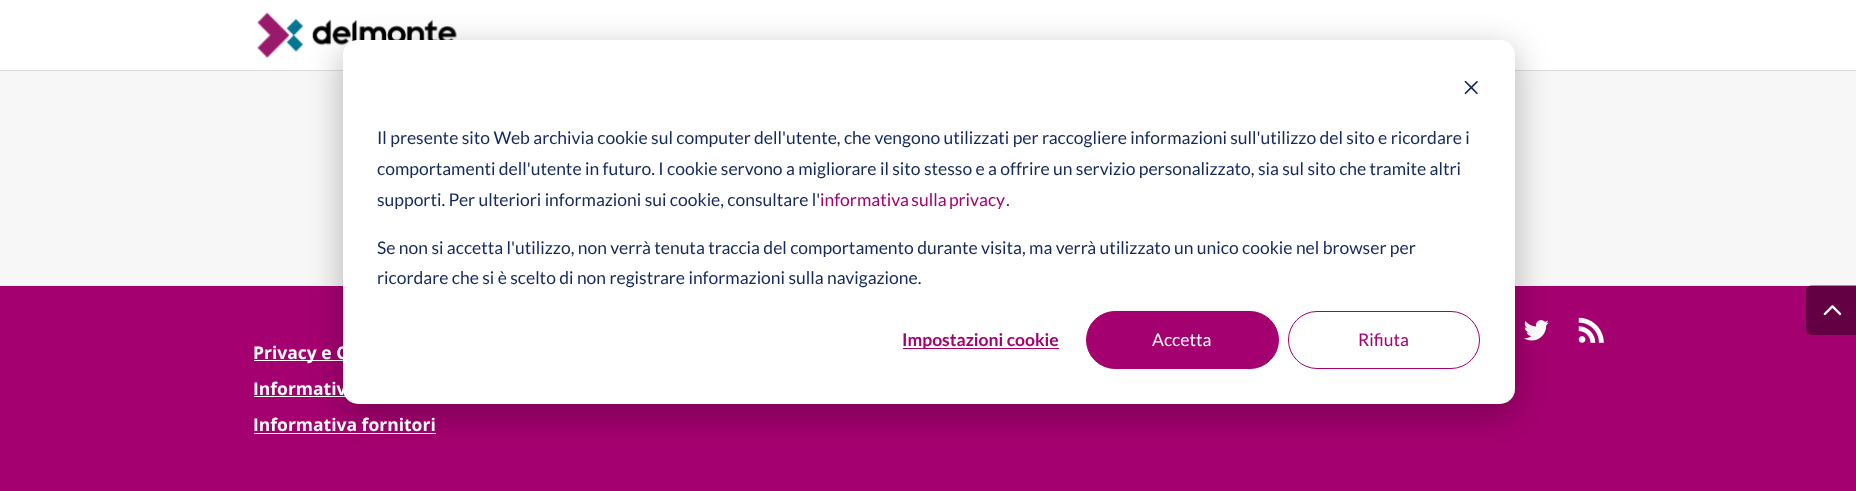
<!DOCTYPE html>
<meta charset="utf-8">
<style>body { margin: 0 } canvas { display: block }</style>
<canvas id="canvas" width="1856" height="491"></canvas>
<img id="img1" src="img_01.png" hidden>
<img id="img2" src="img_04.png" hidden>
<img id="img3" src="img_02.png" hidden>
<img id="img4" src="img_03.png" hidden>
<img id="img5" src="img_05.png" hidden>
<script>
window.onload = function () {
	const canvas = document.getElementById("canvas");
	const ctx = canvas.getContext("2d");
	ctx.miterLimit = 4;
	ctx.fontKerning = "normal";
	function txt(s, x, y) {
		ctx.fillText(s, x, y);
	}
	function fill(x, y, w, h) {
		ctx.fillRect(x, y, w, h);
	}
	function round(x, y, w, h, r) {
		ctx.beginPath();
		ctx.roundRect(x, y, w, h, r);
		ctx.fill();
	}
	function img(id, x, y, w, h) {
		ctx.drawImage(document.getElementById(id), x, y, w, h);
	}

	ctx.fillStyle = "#F7F7F7";
	fill(0, 0, 1856, 491);
	ctx.fillStyle = "rgba(0, 0, 0, 0.1)";
	fill(0, 70, 1856, 1);
	ctx.fillStyle = "#FFFFFF";
	fill(0, 0, 1856, 70);
	img("img1", 257, 12, 200, 46);
	ctx.fillStyle = "#A50070";
	fill(0, 286, 1856, 205);
	img("img2", 1524, 320, 25, 21);
	ctx.fillStyle = "#FFFFFF";
	fill(254, 360, 89, 1);
	fill(254, 396, 92, 1);
	fill(254, 433, 182, 1);
	ctx.fillStyle = "rgba(0, 0, 0, 0.28)";
	ctx.filter = "blur(17.5px)";
	ctx.beginPath();
	ctx.roundRect(343, 50, 1172, 364, 15);
	ctx.fill();
	ctx.filter = "none";
	ctx.fillStyle = "#FFFFFF";
	round(343, 40, 1172, 364, 15);
	img("img3", 1464, 80, 14, 15);
	ctx.fillStyle = "#A50070";
	fill(903, 348, 156, 1);
	ctx.beginPath();
	ctx.roundRect(1086.5, 311.5, 192, 57, 28.5);
	ctx.fill();
	ctx.strokeStyle = "#A50070";
	ctx.stroke();
	ctx.beginPath();
	ctx.roundRect(1288.5, 311.5, 191, 57, 28.5);
	ctx.stroke();
	ctx.fillStyle = "rgba(0, 0, 0, 0.4)";
	ctx.beginPath();
	ctx.roundRect(1806, 285, 50, 50, [6, 0, 0, 6]);
	ctx.fill();
	img("img4", 1823, 305, 19, 11);
	img("img5", 1578, 317, 26, 26);
	ctx.font = "17.5px Lato";
	ctx.fillStyle = "#15295A";
	txt("Il presente sito Web archivia cookie sul computer dell'utente, che vengono utilizzati per raccogliere informazioni sull'utilizzo del sito e ricordare i", 377, 144);
	txt("comportamenti dell'utente in futuro. I cookie servono a migliorare il sito stesso e a offrire un servizio personalizzato, sia sul sito che tramite altri", 377, 175);
	txt("supporti. Per ulteriori informazioni sui cookie, consultare l'", 377, 206);
	ctx.wordSpacing = "-1px";
	ctx.fillStyle = "#A50070";
	txt("informativa sulla privacy", 820, 206);
	ctx.wordSpacing = "0px";
	txt(".", 1006, 206);
	ctx.fillStyle = "#15295A";
	txt("Se non si accetta l'utilizzo, non verrà tenuta traccia del comportamento durante visita, ma verrà utilizzato un unico cookie nel browser per", 377, 254);
	txt("ricordare che si è scelto di non registrare informazioni sulla navigazione.", 377, 284);
	ctx.font = "bold 17.5px Lato";
	ctx.fillStyle = "#A50070";
	txt("Impostazioni cookie", 902, 346);
	ctx.font = "17.5px Lato";
	ctx.fillStyle = "#FFFFFF";
	txt("Accetta", 1152, 346);
	ctx.fillStyle = "#A50070";
	txt("Rifiuta", 1358, 346);
	ctx.font = "bold 17.5px Open Sans";
	ctx.fillStyle = "#FFFFFF";
	txt("Privacy e C", 253, 359);
	txt("Informativ", 253, 395);
	txt("Informativa fornitori", 253, 431);
};
</script>
